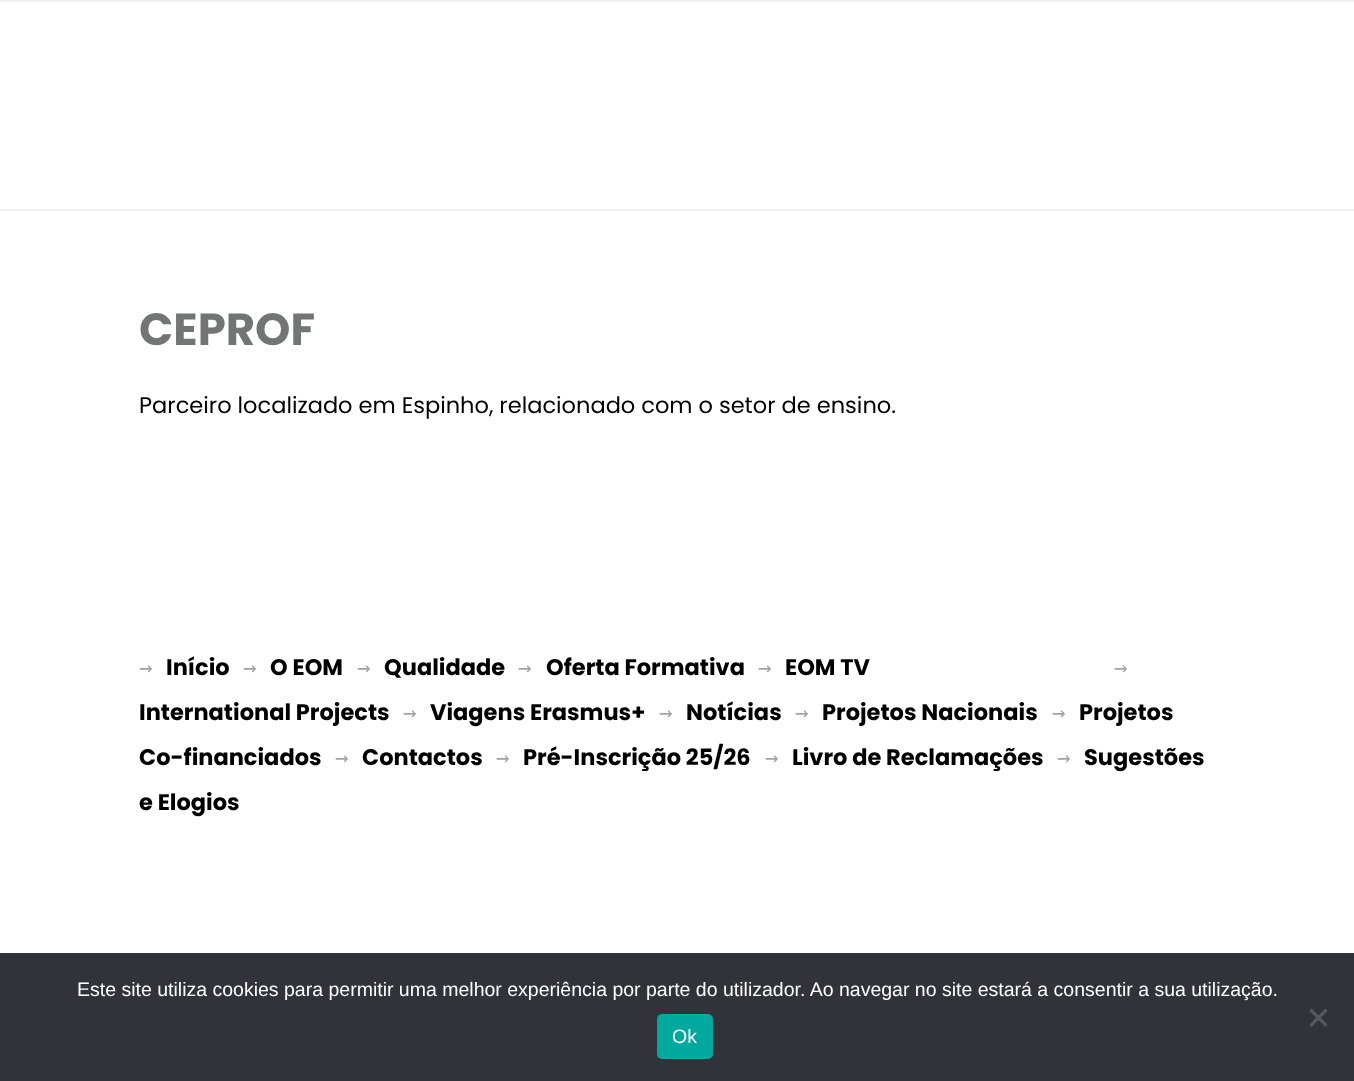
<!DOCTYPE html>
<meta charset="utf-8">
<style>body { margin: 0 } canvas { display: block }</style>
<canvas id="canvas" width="1354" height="1081"></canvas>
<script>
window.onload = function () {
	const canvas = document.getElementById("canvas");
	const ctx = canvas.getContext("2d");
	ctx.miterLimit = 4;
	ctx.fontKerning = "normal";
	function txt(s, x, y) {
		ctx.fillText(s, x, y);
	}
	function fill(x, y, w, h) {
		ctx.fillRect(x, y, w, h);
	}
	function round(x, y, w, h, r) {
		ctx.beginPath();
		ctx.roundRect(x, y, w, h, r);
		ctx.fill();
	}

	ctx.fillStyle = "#FFFFFF";
	fill(0, 0, 1354, 1081);
	ctx.fillStyle = "#F1F1F1";
	fill(0, 0, 1354, 2);
	fill(0, 209, 1354, 2);
	ctx.fillStyle = "#32323A";
	fill(0, 953, 1354, 128);
	ctx.fillStyle = "#59595D";
	ctx.beginPath();
	ctx.moveTo(1325.5, 1008.5);
	ctx.lineTo(1327.5, 1011);
	ctx.lineTo(1311.5, 1027);
	ctx.lineTo(1309.5, 1024.5);
	ctx.closePath();
	ctx.fill();
	ctx.beginPath();
	ctx.moveTo(1309.5, 1011);
	ctx.lineTo(1311.5, 1008.5);
	ctx.lineTo(1327.5, 1024.5);
	ctx.lineTo(1325.5, 1027);
	ctx.closePath();
	ctx.fill();
	ctx.fillStyle = "#00A99D";
	round(657, 1014, 56, 45, 5);
	ctx.font = "bold 45px Poppins";
	ctx.fillStyle = "#727475";
	txt("CEPROF", 139, 345);
	ctx.font = "22.5px Poppins";
	ctx.fillStyle = "#000000";
	txt("Parceiro localizado em Espinho, relacionado com o setor de ensino.", 139, 413);
	ctx.font = "22.5px DejaVu Sans Mono";
	ctx.fillStyle = "#A3A3A3";
	txt("→", 139, 675);
	ctx.font = "bold 22.5px Poppins";
	ctx.fillStyle = "#000000";
	txt("Início", 166, 675);
	ctx.font = "22.5px DejaVu Sans Mono";
	ctx.fillStyle = "#A3A3A3";
	txt("→", 243, 675);
	ctx.font = "bold 22.5px Poppins";
	ctx.fillStyle = "#000000";
	txt("O EOM", 270, 675);
	ctx.font = "22.5px DejaVu Sans Mono";
	ctx.fillStyle = "#A3A3A3";
	txt("→", 357, 675);
	ctx.font = "bold 22.5px Poppins";
	ctx.fillStyle = "#000000";
	txt("Qualidade", 384, 675);
	ctx.font = "22.5px DejaVu Sans Mono";
	ctx.fillStyle = "#A3A3A3";
	txt("→", 518, 675);
	ctx.font = "bold 22.5px Poppins";
	ctx.fillStyle = "#000000";
	txt("Oferta Formativa", 546, 675);
	ctx.font = "22.5px DejaVu Sans Mono";
	ctx.fillStyle = "#A3A3A3";
	txt("→", 758, 675);
	ctx.font = "bold 22.5px Poppins";
	ctx.fillStyle = "#000000";
	txt("EOM TV", 785, 675);
	ctx.font = "22.5px DejaVu Sans Mono";
	ctx.fillStyle = "#A3A3A3";
	txt("→", 1114, 675);
	ctx.font = "bold 22.5px Poppins";
	ctx.fillStyle = "#000000";
	txt("International Projects", 139, 720);
	ctx.font = "22.5px DejaVu Sans Mono";
	ctx.fillStyle = "#A3A3A3";
	txt("→", 403, 720);
	ctx.font = "bold 22.5px Poppins";
	ctx.fillStyle = "#000000";
	txt("Viagens Erasmus+", 430, 720);
	ctx.font = "22.5px DejaVu Sans Mono";
	ctx.fillStyle = "#A3A3A3";
	txt("→", 659, 720);
	ctx.font = "bold 22.5px Poppins";
	ctx.fillStyle = "#000000";
	txt("Notícias", 686, 720);
	ctx.font = "22.5px DejaVu Sans Mono";
	ctx.fillStyle = "#A3A3A3";
	txt("→", 795, 720);
	ctx.font = "bold 22.5px Poppins";
	ctx.fillStyle = "#000000";
	txt("Projetos Nacionais", 822, 720);
	ctx.font = "22.5px DejaVu Sans Mono";
	ctx.fillStyle = "#A3A3A3";
	txt("→", 1052, 720);
	ctx.font = "bold 22.5px Poppins";
	ctx.fillStyle = "#000000";
	txt("Projetos", 1079, 720);
	txt("Co-financiados", 139, 765);
	ctx.font = "22.5px DejaVu Sans Mono";
	ctx.fillStyle = "#A3A3A3";
	txt("→", 335, 765);
	ctx.font = "bold 22.5px Poppins";
	ctx.fillStyle = "#000000";
	txt("Contactos", 362, 765);
	ctx.font = "22.5px DejaVu Sans Mono";
	ctx.fillStyle = "#A3A3A3";
	txt("→", 496, 765);
	ctx.font = "bold 22.5px Poppins";
	ctx.fillStyle = "#000000";
	txt("Pré-Inscrição 25/26", 523, 765);
	ctx.font = "22.5px DejaVu Sans Mono";
	ctx.fillStyle = "#A3A3A3";
	txt("→", 765, 765);
	ctx.font = "bold 22.5px Poppins";
	ctx.fillStyle = "#000000";
	txt("Livro de Reclamações", 792, 765);
	ctx.font = "22.5px DejaVu Sans Mono";
	ctx.fillStyle = "#A3A3A3";
	txt("→", 1057, 765);
	ctx.font = "bold 22.5px Poppins";
	ctx.fillStyle = "#000000";
	txt("Sugestões", 1084, 765);
	txt("e Elogios", 139, 810);
	ctx.font = "19.5px Liberation Sans";
	ctx.fillStyle = "#FFFFFF";
	txt("Este site utiliza cookies para permitir uma melhor experiência por parte do utilizador. Ao navegar no site estará a consentir a sua utilização.", 77, 996);
	txt("Ok", 672, 1043);
};
</script>
